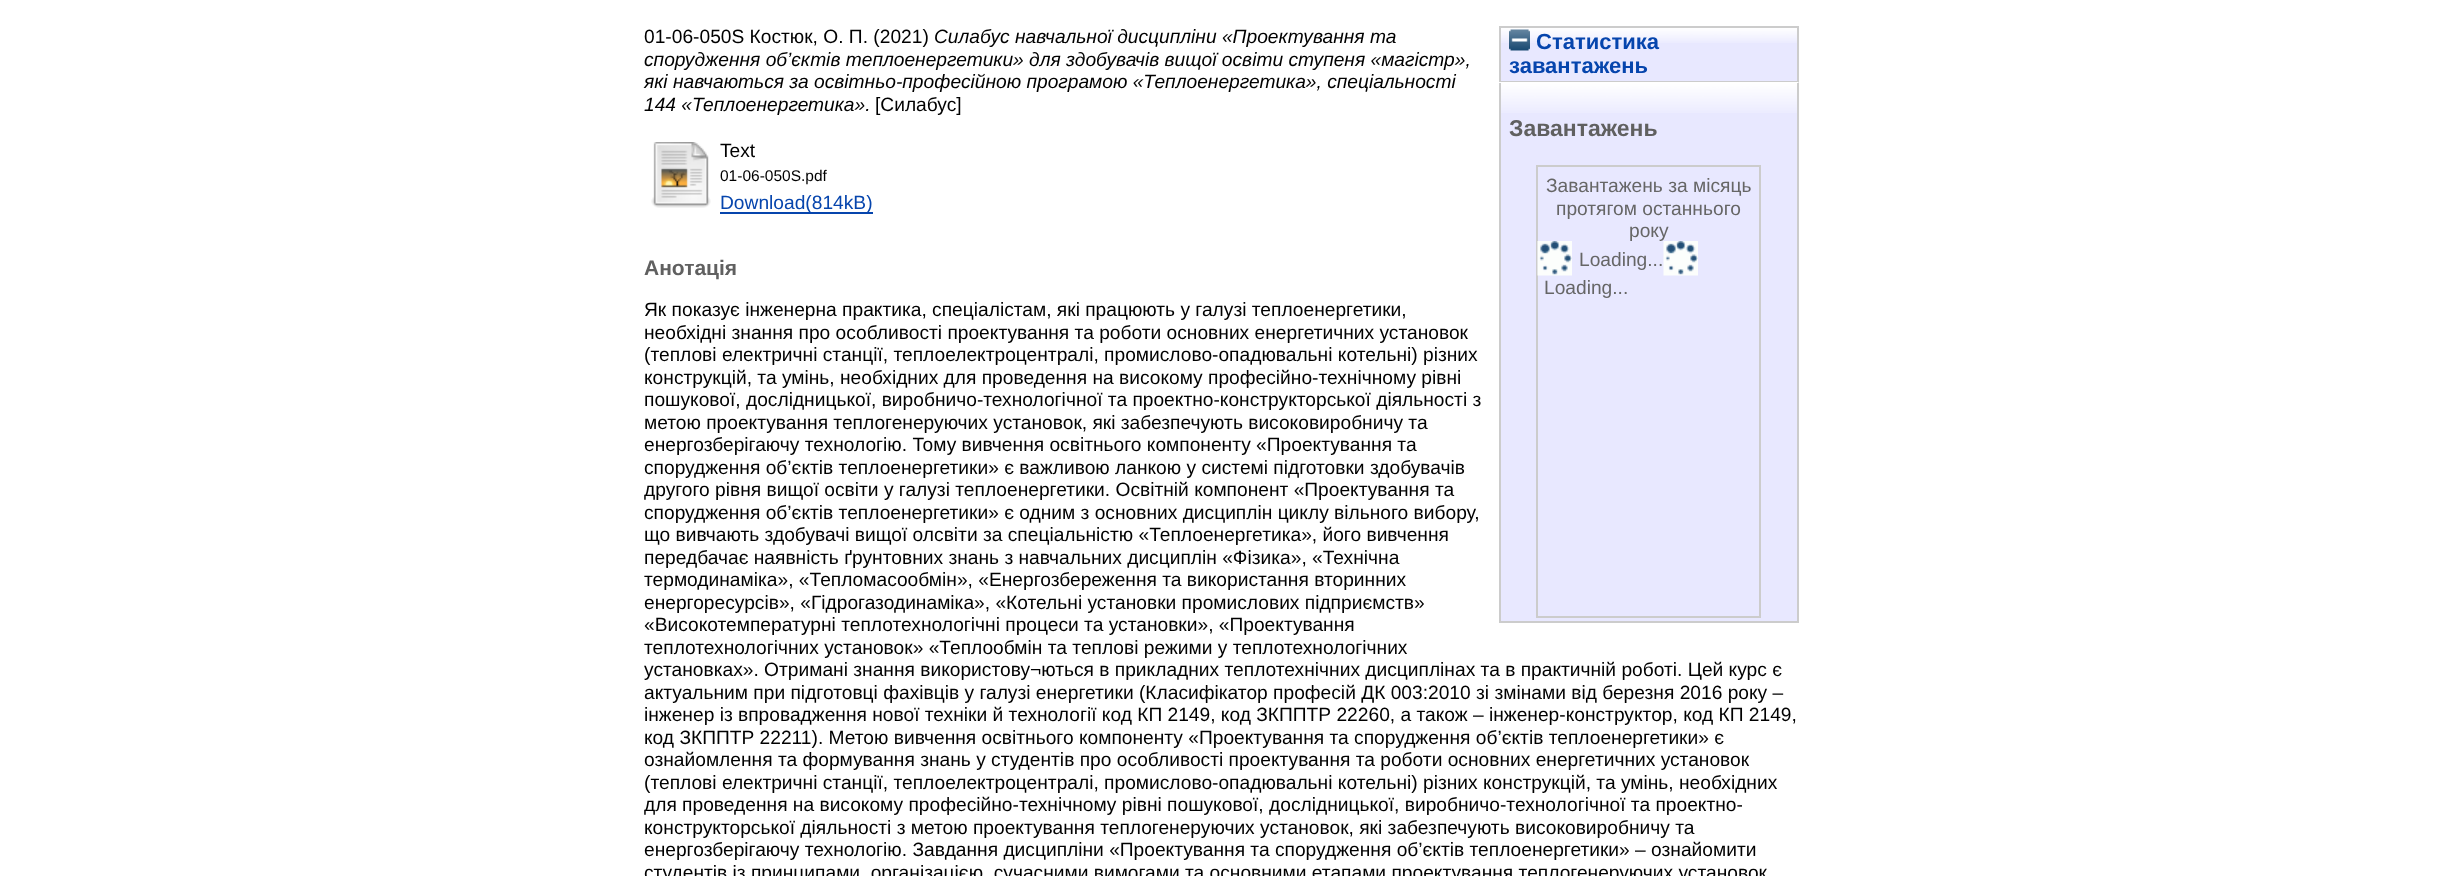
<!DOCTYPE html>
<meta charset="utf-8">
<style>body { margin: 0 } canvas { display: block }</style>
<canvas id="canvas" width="2441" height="876"></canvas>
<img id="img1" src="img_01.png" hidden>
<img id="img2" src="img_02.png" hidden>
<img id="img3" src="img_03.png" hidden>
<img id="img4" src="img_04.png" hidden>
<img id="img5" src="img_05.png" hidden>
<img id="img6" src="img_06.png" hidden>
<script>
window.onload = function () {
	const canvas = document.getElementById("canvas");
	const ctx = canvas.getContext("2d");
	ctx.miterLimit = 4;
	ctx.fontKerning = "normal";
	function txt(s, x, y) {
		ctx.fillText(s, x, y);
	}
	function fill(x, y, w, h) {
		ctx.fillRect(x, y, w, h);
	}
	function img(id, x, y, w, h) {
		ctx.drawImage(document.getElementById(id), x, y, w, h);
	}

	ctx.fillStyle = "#FFFFFF";
	fill(0, 0, 2441, 876);
	img("img1", 651, 142, 60, 66);
	ctx.fillStyle = "#0645AD";
	fill(720, 212, 153, 2);
	ctx.fillStyle = "#E8E8FF";
	fill(1501, 28, 296, 53);
	img("img2", 1501, 28, 296, 15);
	ctx.strokeStyle = "#CCCCCC";
	ctx.lineWidth = 2;
	ctx.strokeRect(1500, 27, 298, 55);
	img("img3", 1509, 29, 21, 22);
	fill(1501, 83, 296, 538);
	img("img4", 1499, 82, 300, 31);
	ctx.fillStyle = "#CCCCCC";
	fill(1797, 83, 2, 540);
	fill(1499, 621, 300, 2);
	fill(1499, 83, 2, 540);
	ctx.strokeRect(1537, 166, 223, 451);
	img("img5", 1537, 241, 35, 35);
	img("img6", 1663, 241, 35, 35);
	ctx.font = "19.2px Liberation Sans";
	ctx.fillStyle = "#000000";
	txt("01-06-050S Костюк, О. П. (2021)", 644, 43);
	ctx.font = "italic 19.2px Liberation Sans";
	txt("Силабус навчальної дисципліни «Проектування та", 934, 43);
	txt("спорудження об’єктів теплоенергетики» для здобувачів вищої освіти ступеня «магістр»,", 644, 66);
	txt("які навчаються за освітньо-професійною програмою «Теплоенергетика», спеціальності", 644, 88);
	txt("144 «Теплоенергетика».", 644, 111);
	ctx.font = "19.2px Liberation Sans";
	txt("[Силабус]", 875, 111);
	txt("Text", 720, 157);
	ctx.font = "15.5px Liberation Sans";
	txt("01-06-050S.pdf", 720, 181);
	ctx.font = "19.2px Liberation Sans";
	ctx.fillStyle = "#0645AD";
	txt("Download(814kB)", 720, 209);
	ctx.font = "bold 21px Liberation Sans";
	ctx.fillStyle = "#606060";
	txt("Анотація", 644, 275);
	ctx.font = "19.2px Liberation Sans";
	ctx.fillStyle = "#000000";
	txt("Як показує інженерна практика, спеціалістам, які працюють у галузі теплоенергетики,", 644, 316);
	txt("необхідні знання про особливості проектування та роботи основних енергетичних установок", 644, 339);
	txt("(теплові електричні станції, теплоелектроцентралі, промислово-опадювальні котельні) різних", 644, 361);
	txt("конструкцій, та умінь, необхідних для проведення на високому професійно-технічному рівні", 644, 384);
	txt("пошукової, дослідницької, виробничо-технологічної та проектно-конструкторської діяльності з", 644, 406);
	txt("метою проектування теплогенеруючих установок, які забезпечують високовиробничу та", 644, 429);
	txt("енергозберігаючу технологію. Тому вивчення освітнього компоненту «Проектування та", 644, 451);
	txt("спорудження об’єктів теплоенергетики» є важливою ланкою у системі підготовки здобувачів", 644, 474);
	txt("другого рівня вищої освіти у галузі теплоенергетики. Освітній компонент «Проектування та", 644, 496);
	txt("спорудження об’єктів теплоенергетики» є одним з основних дисциплін циклу вільного вибору,", 644, 519);
	txt("що вивчають здобувачі вищої олсвіти за спеціальністю «Теплоенергетика», його вивчення", 644, 541);
	txt("передбачає наявність ґрунтовних знань з навчальних дисциплін «Фізика», «Технічна", 644, 564);
	txt("термодинаміка», «Тепломасообмін», «Енергозбереження та використання вторинних", 644, 586);
	txt("енергоресурсів», «Гідрогазодинаміка», «Котельні установки промислових підприємств»", 644, 609);
	txt("«Високотемпературні теплотехнологічні процеси та установки», «Проектування", 644, 631);
	txt("теплотехнологічних установок» «Теплообмін та теплові режими у теплотехнологічних", 644, 654);
	txt("установках». Отримані знання використову¬ються в прикладних теплотехнічних дисциплінах та в практичній роботі. Цей курс є", 644, 676);
	txt("актуальним при підготовці фахівців у галузі енергетики (Класифікатор професій ДК 003:2010 зі змінами від березня 2016 року –", 644, 699);
	txt("інженер із впровадження нової техніки й технології код КП 2149, код ЗКППТР 22260, а також – інженер-конструктор, код КП 2149,", 644, 721);
	txt("код ЗКППТР 22211). Метою вивчення освітнього компоненту «Проектування та спорудження об’єктів теплоенергетики» є", 644, 744);
	txt("ознайомлення та формування знань у студентів про особливості проектування та роботи основних енергетичних установок", 644, 766);
	txt("(теплові електричні станції, теплоелектроцентралі, промислово-опадювальні котельні) різних конструкцій, та умінь, необхідних", 644, 789);
	txt("для проведення на високому професійно-технічному рівні пошукової, дослідницької, виробничо-технологічної та проектно-", 644, 811);
	txt("конструкторської діяльності з метою проектування теплогенеруючих установок, які забезпечують високовиробничу та", 644, 834);
	txt("енергозберігаючу технологію. Завдання дисципліни «Проектування та спорудження об’єктів теплоенергетики» – ознайомити", 644, 856);
	txt("студентів із принципами, організацією, сучасними вимогами та основними етапами проектування теплогенеруючих установок", 644, 879);
	ctx.font = "bold 22px Liberation Sans";
	ctx.fillStyle = "#0645AD";
	txt("Статистика", 1536, 49);
	txt("завантажень", 1509, 73);
	ctx.font = "bold 23px Liberation Sans";
	ctx.fillStyle = "#606060";
	txt("Завантажень", 1509, 136);
	ctx.font = "19.2px Liberation Sans";
	ctx.fillStyle = "#666666";
	txt("Завантажень за місяць", 1546, 192);
	txt("протягом останнього", 1556, 215);
	txt("року", 1629, 237);
	txt("Loading...", 1579, 266);
	txt("Loading...", 1544, 294);
};
</script>
